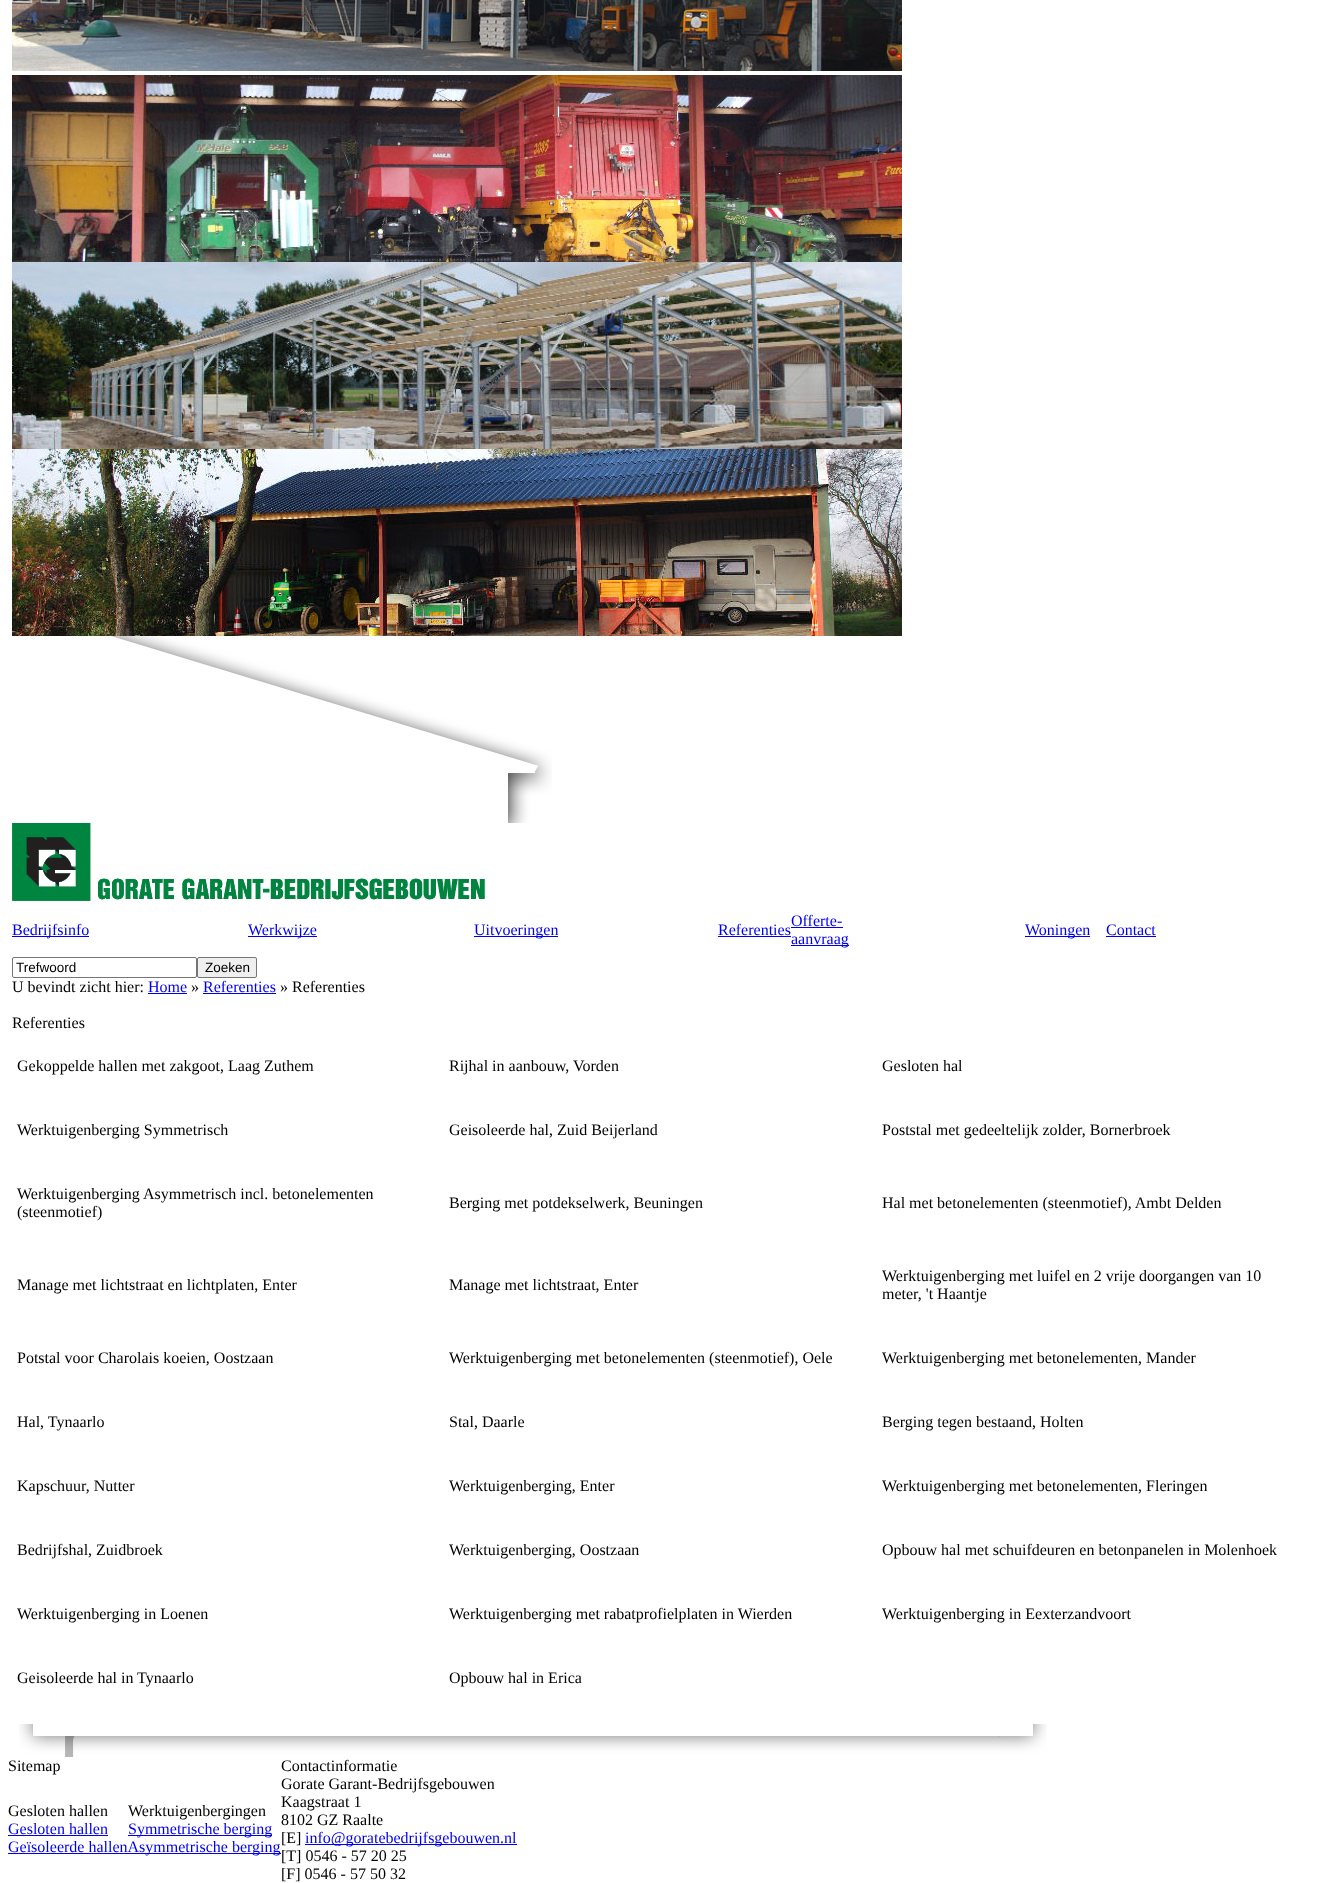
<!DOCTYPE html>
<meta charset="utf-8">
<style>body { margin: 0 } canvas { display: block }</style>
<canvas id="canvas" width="1321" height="1883"></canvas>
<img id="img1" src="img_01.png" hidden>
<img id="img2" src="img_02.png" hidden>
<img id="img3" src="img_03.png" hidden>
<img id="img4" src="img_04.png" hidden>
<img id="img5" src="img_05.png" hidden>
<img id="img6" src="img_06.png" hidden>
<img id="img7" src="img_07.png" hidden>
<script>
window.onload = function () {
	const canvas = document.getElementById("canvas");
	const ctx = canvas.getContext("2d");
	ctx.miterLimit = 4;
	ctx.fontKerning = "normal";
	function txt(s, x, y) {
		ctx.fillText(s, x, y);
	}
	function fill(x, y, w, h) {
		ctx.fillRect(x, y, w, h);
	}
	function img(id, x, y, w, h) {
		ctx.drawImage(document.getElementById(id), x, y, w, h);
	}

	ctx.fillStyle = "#FFFFFF";
	fill(0, 0, 1321, 1883);
	img("img1", 12, 0, 890, 71);
	img("img2", 12, 75, 890, 187);
	img("img3", 12, 262, 890, 187);
	img("img4", 12, 449, 890, 187);
	img("img5", 111, 636, 441, 187);
	img("img6", 12, 823, 473, 78);
	ctx.fillStyle = "#0000EE";
	fill(12, 936, 77, 1);
	fill(248, 936, 69, 1);
	fill(474, 936, 84, 1);
	fill(718, 936, 73, 1);
	fill(791, 927, 52, 1);
	fill(791, 945, 58, 1);
	fill(1025, 936, 65, 1);
	fill(1106, 936, 50, 1);
	ctx.beginPath();
	ctx.roundRect(12.5, 957.5, 184, 20, 1.5);
	ctx.strokeStyle = "#767676";
	ctx.stroke();
	ctx.fillStyle = "#EFEFEF";
	ctx.beginPath();
	ctx.roundRect(197.5, 957.5, 59, 20, 1.5);
	ctx.fill();
	ctx.stroke();
	ctx.fillStyle = "#0000EE";
	fill(148, 993, 39, 1);
	fill(203, 993, 73, 1);
	img("img7", 19, 1724, 1028, 33);
	fill(8, 1835, 100, 1);
	fill(128, 1835, 144, 1);
	fill(8, 1853, 273, 1);
	fill(305, 1844, 212, 1);
	ctx.font = "16px Liberation Serif";
	txt("Bedrijfsinfo", 12, 935);
	txt("Werkwijze", 248, 935);
	txt("Uitvoeringen", 474, 935);
	txt("Referenties", 718, 935);
	txt("Offerte-", 791, 926);
	txt("aanvraag", 791, 944);
	txt("Woningen", 1025, 935);
	txt("Contact", 1106, 935);
	ctx.font = "13.5px Liberation Sans";
	ctx.fillStyle = "#000000";
	txt("Trefwoord", 16, 972);
	txt("Zoeken", 205, 972);
	ctx.font = "16px Liberation Serif";
	txt("U bevindt zicht hier:", 12, 992);
	ctx.fillStyle = "#0000EE";
	txt("Home", 148, 992);
	ctx.fillStyle = "#000000";
	txt("»", 191, 992);
	ctx.fillStyle = "#0000EE";
	txt("Referenties", 203, 992);
	ctx.fillStyle = "#000000";
	txt("» Referenties", 280, 992);
	txt("Referenties", 12, 1028);
	txt("Gekoppelde hallen met zakgoot, Laag Zuthem", 17, 1071);
	txt("Rijhal in aanbouw, Vorden", 449, 1071);
	txt("Gesloten hal", 882, 1071);
	txt("Werktuigenberging Symmetrisch", 17, 1135);
	txt("Geisoleerde hal, Zuid Beijerland", 449, 1135);
	txt("Poststal met gedeeltelijk zolder, Bornerbroek", 882, 1135);
	txt("Werktuigenberging Asymmetrisch incl. betonelementen", 17, 1199);
	txt("(steenmotief)", 17, 1217);
	txt("Berging met potdekselwerk, Beuningen", 449, 1208);
	txt("Hal met betonelementen (steenmotief), Ambt Delden", 882, 1208);
	txt("Manage met lichtstraat en lichtplaten, Enter", 17, 1290);
	txt("Manage met lichtstraat, Enter", 449, 1290);
	txt("Werktuigenberging met luifel en 2 vrije doorgangen van 10", 882, 1281);
	txt("meter, 't Haantje", 882, 1299);
	txt("Potstal voor Charolais koeien, Oostzaan", 17, 1363);
	txt("Werktuigenberging met betonelementen (steenmotief), Oele", 449, 1363);
	txt("Werktuigenberging met betonelementen, Mander", 882, 1363);
	txt("Hal, Tynaarlo", 17, 1427);
	txt("Stal, Daarle", 449, 1427);
	txt("Berging tegen bestaand, Holten", 882, 1427);
	txt("Kapschuur, Nutter", 17, 1491);
	txt("Werktuigenberging, Enter", 449, 1491);
	txt("Werktuigenberging met betonelementen, Fleringen", 882, 1491);
	txt("Bedrijfshal, Zuidbroek", 17, 1555);
	txt("Werktuigenberging, Oostzaan", 449, 1555);
	txt("Opbouw hal met schuifdeuren en betonpanelen in Molenhoek", 882, 1555);
	txt("Werktuigenberging in Loenen", 17, 1619);
	txt("Werktuigenberging met rabatprofielplaten in Wierden", 449, 1619);
	txt("Werktuigenberging in Eexterzandvoort", 882, 1619);
	txt("Geisoleerde hal in Tynaarlo", 17, 1683);
	txt("Opbouw hal in Erica", 449, 1683);
	txt("Sitemap", 8, 1771);
	txt("Contactinformatie", 281, 1771);
	txt("Gesloten hallen", 8, 1816);
	txt("Werktuigenbergingen", 128, 1816);
	ctx.fillStyle = "#0000EE";
	txt("Gesloten hallen", 8, 1834);
	txt("Symmetrische berging", 128, 1834);
	txt("Geïsoleerde hallenAsymmetrische berging", 8, 1852);
	ctx.fillStyle = "#000000";
	txt("Gorate Garant-Bedrijfsgebouwen", 281, 1789);
	txt("Kaagstraat 1", 281, 1807);
	txt("8102 GZ Raalte", 281, 1825);
	txt("[E]", 281, 1843);
	ctx.fillStyle = "#0000EE";
	txt("info@goratebedrijfsgebouwen.nl", 305, 1843);
	ctx.fillStyle = "#000000";
	txt("[T] 0546 - 57 20 25", 281, 1861);
	txt("[F] 0546 - 57 50 32", 281, 1879);
};
</script>
